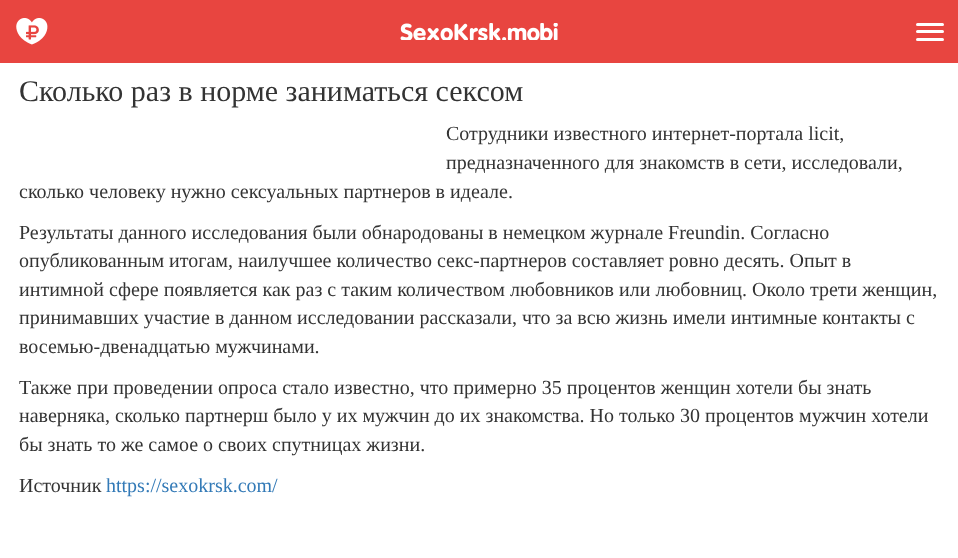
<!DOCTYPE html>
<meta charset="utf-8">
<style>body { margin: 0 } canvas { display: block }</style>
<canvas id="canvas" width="958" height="558"></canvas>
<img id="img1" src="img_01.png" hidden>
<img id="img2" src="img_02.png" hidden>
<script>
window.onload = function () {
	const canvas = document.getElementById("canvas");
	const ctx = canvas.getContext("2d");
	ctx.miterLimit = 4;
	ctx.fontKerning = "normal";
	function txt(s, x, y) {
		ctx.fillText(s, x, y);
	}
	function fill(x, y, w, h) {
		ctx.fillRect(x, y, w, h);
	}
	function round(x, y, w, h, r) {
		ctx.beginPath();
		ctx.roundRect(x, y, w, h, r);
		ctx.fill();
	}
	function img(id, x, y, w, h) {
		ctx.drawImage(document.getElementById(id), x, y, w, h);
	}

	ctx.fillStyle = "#FFFFFF";
	fill(0, 0, 958, 558);
	ctx.fillStyle = "#E84540";
	fill(0, 0, 958, 63);
	img("img1", 16, 18, 32, 27);
	img("img2", 400, 23, 158, 17);
	ctx.fillStyle = "#FFFFFF";
	round(916, 23, 28, 3, 1.5);
	round(916, 30, 28, 3, 1.5);
	round(916, 38, 28, 3, 1.5);
	ctx.font = "30px Liberation Serif";
	ctx.fillStyle = "#333333";
	txt("Сколько раз в норме заниматься сексом", 19, 101);
	ctx.font = "20px Liberation Serif";
	txt("Сотрудники известного интернет-портала licit,", 446, 140);
	txt("предназначенного для знакомств в сети, исследовали,", 446, 169);
	txt("сколько человеку нужно сексуальных партнеров в идеале.", 19, 198);
	txt("Результаты данного исследования были обнародованы в немецком журнале Freundin. Согласно", 19, 239);
	txt("опубликованным итогам, наилучшее количество секс-партнеров составляет ровно десять. Опыт в", 19, 267);
	txt("интимной сфере появляется как раз с таким количеством любовников или любовниц. Около трети женщин,", 19, 296);
	txt("принимавших участие в данном исследовании рассказали, что за всю жизнь имели интимные контакты с", 19, 324);
	txt("восемью-двенадцатью мужчинами.", 19, 353);
	txt("Также при проведении опроса стало известно, что примерно 35 процентов женщин хотели бы знать", 19, 394);
	txt("наверняка, сколько партнерш было у их мужчин до их знакомства. Но только 30 процентов мужчин хотели", 19, 422);
	txt("бы знать то же самое о своих спутницах жизни.", 19, 451);
	txt("Источник", 19, 492);
	ctx.fillStyle = "#337AB7";
	txt("https://sexokrsk.com/", 106, 492);
};
</script>
